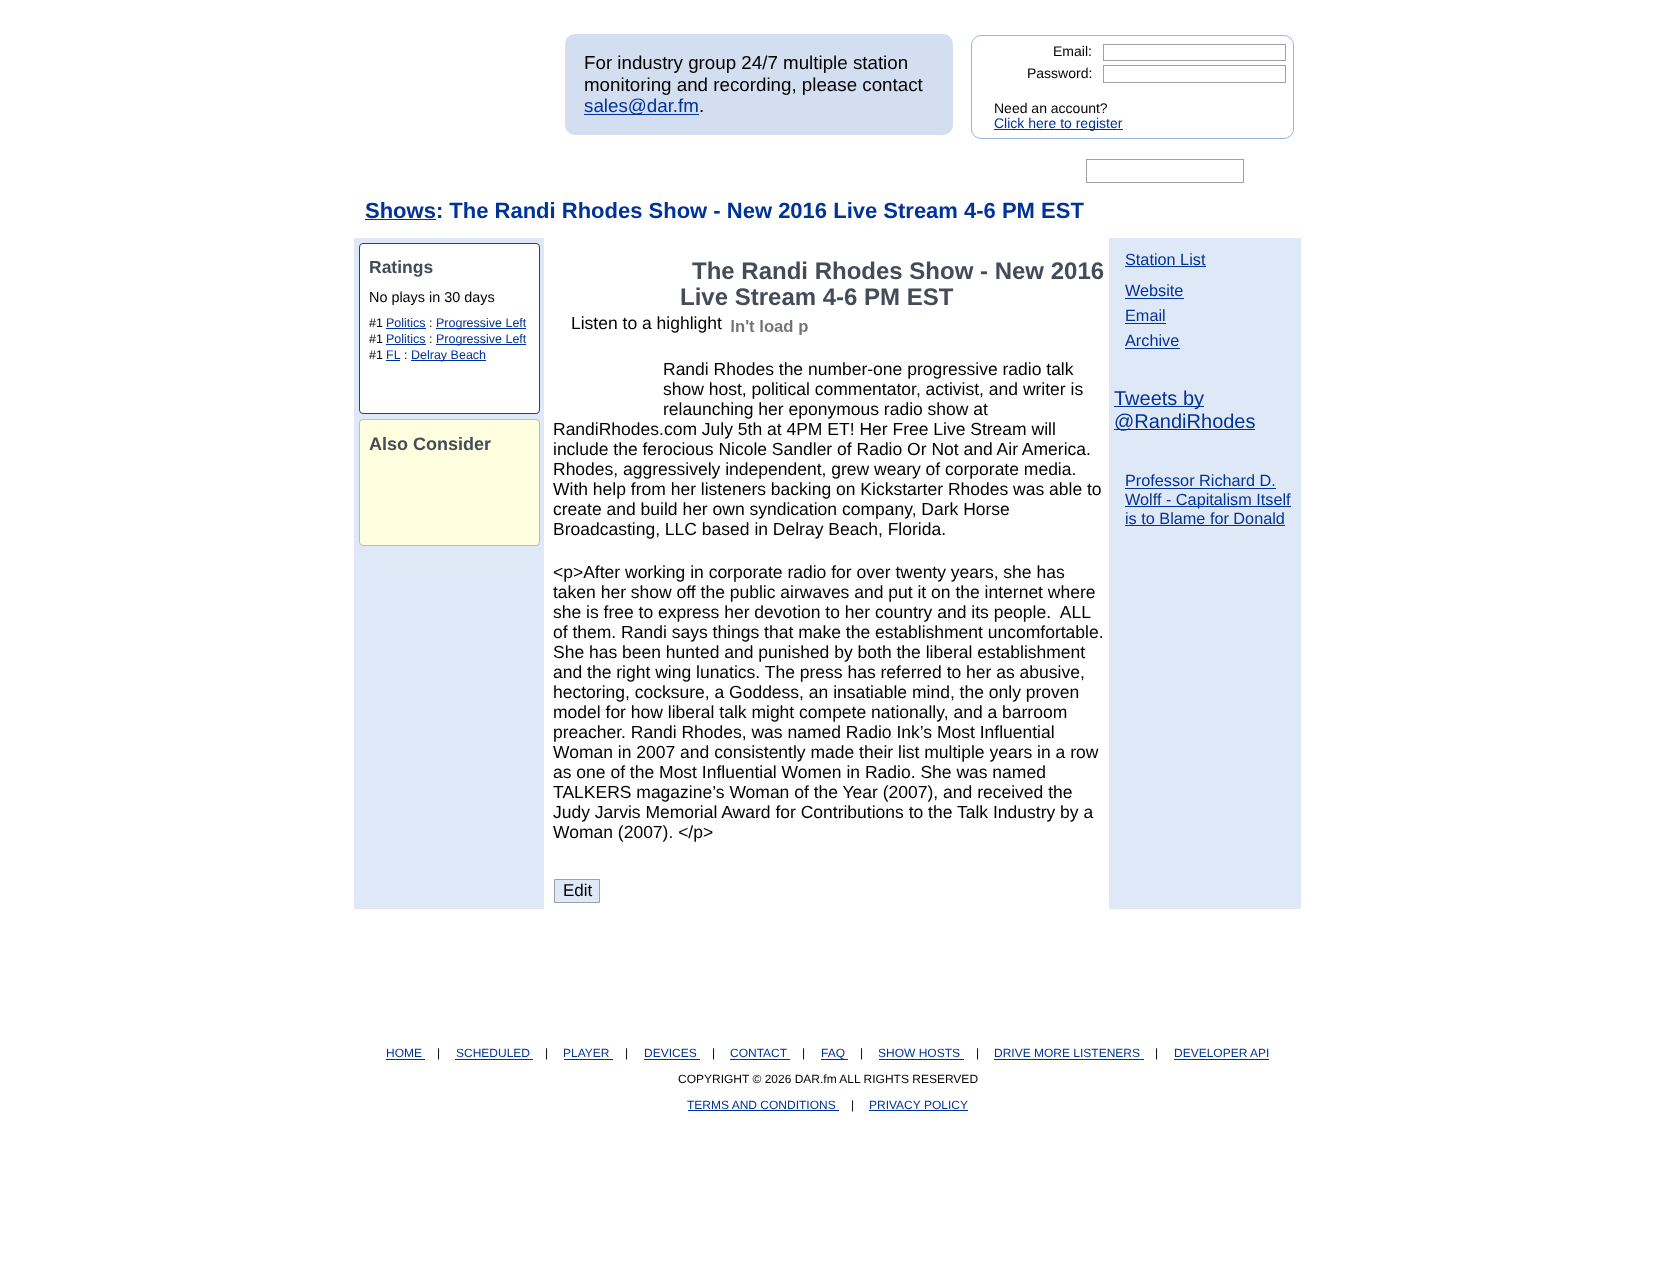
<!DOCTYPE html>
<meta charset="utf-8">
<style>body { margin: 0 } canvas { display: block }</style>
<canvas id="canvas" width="1655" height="1280"></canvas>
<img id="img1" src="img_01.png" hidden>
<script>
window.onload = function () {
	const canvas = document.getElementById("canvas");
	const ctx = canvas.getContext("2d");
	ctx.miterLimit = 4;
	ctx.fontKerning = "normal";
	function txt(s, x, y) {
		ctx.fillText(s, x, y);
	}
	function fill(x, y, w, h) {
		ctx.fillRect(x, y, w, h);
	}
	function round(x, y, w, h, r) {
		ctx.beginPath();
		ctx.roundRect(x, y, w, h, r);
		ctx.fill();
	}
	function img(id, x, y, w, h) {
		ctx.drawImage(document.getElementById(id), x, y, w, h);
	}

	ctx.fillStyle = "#FFFFFF";
	fill(0, 0, 1655, 1280);
	ctx.fillStyle = "#D3DEF0";
	round(565, 34, 388, 101, 10);
	ctx.fillStyle = "#003399";
	fill(584, 114, 115, 1);
	ctx.beginPath();
	ctx.roundRect(971.5, 35.5, 322, 103, 9.5);
	ctx.strokeStyle = "#9AB6DE";
	ctx.stroke();
	ctx.strokeStyle = "#9DA0A7";
	ctx.strokeRect(1103.5, 44.5, 182, 16);
	ctx.strokeRect(1103.5, 65.5, 182, 17);
	fill(994, 129, 129, 1);
	ctx.strokeRect(1086.5, 159.5, 157, 23);
	ctx.fillStyle = "#DFE8F7";
	fill(354, 238, 947, 671);
	ctx.fillStyle = "#003399";
	fill(365, 219, 71, 1);
	ctx.fillStyle = "#FFFFFF";
	ctx.beginPath();
	ctx.roundRect(359.5, 243.5, 180, 170, 3.5);
	ctx.fill();
	ctx.strokeStyle = "#26466D";
	ctx.stroke();
	ctx.fillStyle = "#003399";
	fill(386, 328, 40, 1);
	fill(436, 328, 90, 1);
	fill(386, 344, 40, 1);
	fill(436, 344, 90, 1);
	fill(386, 360, 14, 1);
	fill(411, 360, 75, 1);
	ctx.fillStyle = "#FFFFE0";
	ctx.beginPath();
	ctx.roundRect(359.5, 419.5, 180, 126, 3.5);
	ctx.fill();
	ctx.strokeStyle = "#BBBBBB";
	ctx.stroke();
	ctx.fillStyle = "#FFFFFF";
	fill(544, 238, 565, 671);
	img("img1", 731, 320, 77, 15);
	ctx.fillStyle = "#DFE8F7";
	ctx.beginPath();
	ctx.rect(554.5, 879.5, 45, 23);
	ctx.fill();
	ctx.strokeStyle = "#9DA0A7";
	ctx.stroke();
	ctx.fillStyle = "#003399";
	fill(1125, 266, 81, 1);
	fill(1125, 298, 59, 1);
	fill(1125, 323, 41, 1);
	fill(1125, 348, 55, 1);
	fill(1114, 406, 90, 1);
	fill(1114, 429, 141, 1);
	fill(1125, 488, 151, 1);
	fill(1125, 506, 166, 1);
	fill(1125, 525, 160, 1);
	fill(386, 1059, 39, 1);
	fill(455, 1059, 78, 1);
	fill(564, 1059, 49, 1);
	fill(644, 1059, 56, 1);
	fill(730, 1059, 60, 1);
	fill(821, 1059, 27, 1);
	fill(879, 1059, 85, 1);
	fill(994, 1059, 150, 1);
	fill(1174, 1059, 95, 1);
	fill(688, 1110, 151, 1);
	fill(869, 1110, 99, 1);
	ctx.font = "18.75px Liberation Sans";
	ctx.fillStyle = "#000000";
	txt("For industry group 24/7 multiple station", 584, 69);
	txt("monitoring and recording, please contact", 584, 91);
	ctx.fillStyle = "#003399";
	txt("sales@dar.fm", 584, 112);
	ctx.fillStyle = "#000000";
	txt(".", 699, 112);
	ctx.font = "14px Liberation Sans";
	txt("Email:", 1053, 56);
	txt("Password:", 1027, 78);
	txt("Need an account?", 994, 113);
	ctx.fillStyle = "#003399";
	txt("Click here to register", 994, 128);
	ctx.font = "bold 22px Liberation Sans";
	txt("Shows: The Randi Rhodes Show - New 2016 Live Stream 4-6 PM EST", 365, 218);
	ctx.font = "bold 17.5px Liberation Sans";
	ctx.fillStyle = "#444B59";
	txt("Ratings", 369, 273);
	ctx.font = "14.4px Liberation Sans";
	ctx.fillStyle = "#000000";
	txt("No plays in 30 days", 369, 302);
	ctx.font = "12.5px Liberation Sans";
	txt("#1", 369, 327);
	ctx.fillStyle = "#003399";
	txt("Politics", 386, 327);
	ctx.fillStyle = "#000000";
	txt(":", 429, 327);
	ctx.fillStyle = "#003399";
	txt("Progressive Left", 436, 327);
	ctx.fillStyle = "#000000";
	txt("#1", 369, 343);
	ctx.fillStyle = "#003399";
	txt("Politics", 386, 343);
	ctx.fillStyle = "#000000";
	txt(":", 429, 343);
	ctx.fillStyle = "#003399";
	txt("Progressive Left", 436, 343);
	ctx.fillStyle = "#000000";
	txt("#1", 369, 359);
	ctx.fillStyle = "#003399";
	txt("FL", 386, 359);
	ctx.fillStyle = "#000000";
	txt(":", 404, 359);
	ctx.fillStyle = "#003399";
	txt("Delray Beach", 411, 359);
	ctx.font = "bold 18px Liberation Sans";
	ctx.fillStyle = "#444B59";
	txt("Also Consider", 369, 450);
	ctx.font = "bold 24px Liberation Sans";
	txt("The Randi Rhodes Show - New 2016", 692, 279);
	txt("Live Stream 4-6 PM EST", 680, 305);
	ctx.font = "17.5px Liberation Sans";
	ctx.fillStyle = "#000000";
	txt("Listen to a highlight", 571, 329);
	txt("Randi Rhodes the number-one progressive radio talk", 663, 375);
	txt("show host, political commentator, activist, and writer is", 663, 395);
	txt("relaunching her eponymous radio show at", 663, 415);
	txt("RandiRhodes.com July 5th at 4PM ET! Her Free Live Stream will", 553, 435);
	txt("include the ferocious Nicole Sandler of Radio Or Not and Air America.", 553, 455);
	txt("Rhodes, aggressively independent, grew weary of corporate media.", 553, 475);
	txt("With help from her listeners backing on Kickstarter Rhodes was able to", 553, 495);
	txt("create and build her own syndication company, Dark Horse", 553, 515);
	txt("Broadcasting, LLC based in Delray Beach, Florida.", 553, 535);
	txt("<p>After working in corporate radio for over twenty years, she has", 553, 578);
	txt("taken her show off the public airwaves and put it on the internet where", 553, 598);
	txt("she is free to express her devotion to her country and its people.  ALL", 553, 618);
	txt("of them. Randi says things that make the establishment uncomfortable.", 553, 638);
	txt("She has been hunted and punished by both the liberal establishment", 553, 658);
	txt("and the right wing lunatics. The press has referred to her as abusive,", 553, 678);
	txt("hectoring, cocksure, a Goddess, an insatiable mind, the only proven", 553, 698);
	txt("model for how liberal talk might compete nationally, and a barroom", 553, 718);
	txt("preacher. Randi Rhodes, was named Radio Ink’s Most Influential", 553, 738);
	txt("Woman in 2007 and consistently made their list multiple years in a row", 553, 758);
	txt("as one of the Most Influential Women in Radio. She was named", 553, 778);
	txt("TALKERS magazine’s Woman of the Year (2007), and received the", 553, 798);
	txt("Judy Jarvis Memorial Award for Contributions to the Talk Industry by a", 553, 818);
	txt("Woman (2007). <\/p>", 553, 838);
	ctx.font = "17px Liberation Sans";
	txt("Edit", 563, 896);
	ctx.font = "16.25px Liberation Sans";
	ctx.fillStyle = "#003399";
	txt("Station List", 1125, 265);
	txt("Website", 1125, 296);
	txt("Email", 1125, 321);
	txt("Archive", 1125, 346);
	ctx.font = "20px Liberation Sans";
	txt("Tweets by", 1114, 405);
	txt("@RandiRhodes", 1114, 428);
	ctx.font = "16.25px Liberation Sans";
	txt("Professor Richard D.", 1125, 486);
	txt("Wolff - Capitalism Itself", 1125, 505);
	txt("is to Blame for Donald", 1125, 524);
	ctx.font = "12px Liberation Sans";
	txt("HOME", 386, 1057);
	ctx.fillStyle = "#000000";
	txt("|", 437, 1057);
	ctx.fillStyle = "#003399";
	txt("SCHEDULED", 456, 1057);
	ctx.fillStyle = "#000000";
	txt("|", 545, 1057);
	ctx.fillStyle = "#003399";
	txt("PLAYER", 563, 1057);
	ctx.fillStyle = "#000000";
	txt("|", 625, 1057);
	ctx.fillStyle = "#003399";
	txt("DEVICES", 644, 1057);
	ctx.fillStyle = "#000000";
	txt("|", 712, 1057);
	ctx.fillStyle = "#003399";
	txt("CONTACT", 730, 1057);
	ctx.fillStyle = "#000000";
	txt("|", 802, 1057);
	ctx.fillStyle = "#003399";
	txt("FAQ", 821, 1057);
	ctx.fillStyle = "#000000";
	txt("|", 860, 1057);
	ctx.fillStyle = "#003399";
	txt("SHOW HOSTS", 878, 1057);
	ctx.fillStyle = "#000000";
	txt("|", 976, 1057);
	ctx.fillStyle = "#003399";
	txt("DRIVE MORE LISTENERS", 994, 1057);
	ctx.fillStyle = "#000000";
	txt("|", 1155, 1057);
	ctx.fillStyle = "#003399";
	txt("DEVELOPER API", 1174, 1057);
	ctx.fillStyle = "#000000";
	txt("COPYRIGHT © 2026 DAR.fm ALL RIGHTS RESERVED", 678, 1083);
	ctx.fillStyle = "#003399";
	txt("TERMS AND CONDITIONS", 687, 1109);
	ctx.fillStyle = "#000000";
	txt("|", 851, 1109);
	ctx.fillStyle = "#003399";
	txt("PRIVACY POLICY", 869, 1109);
};
</script>
